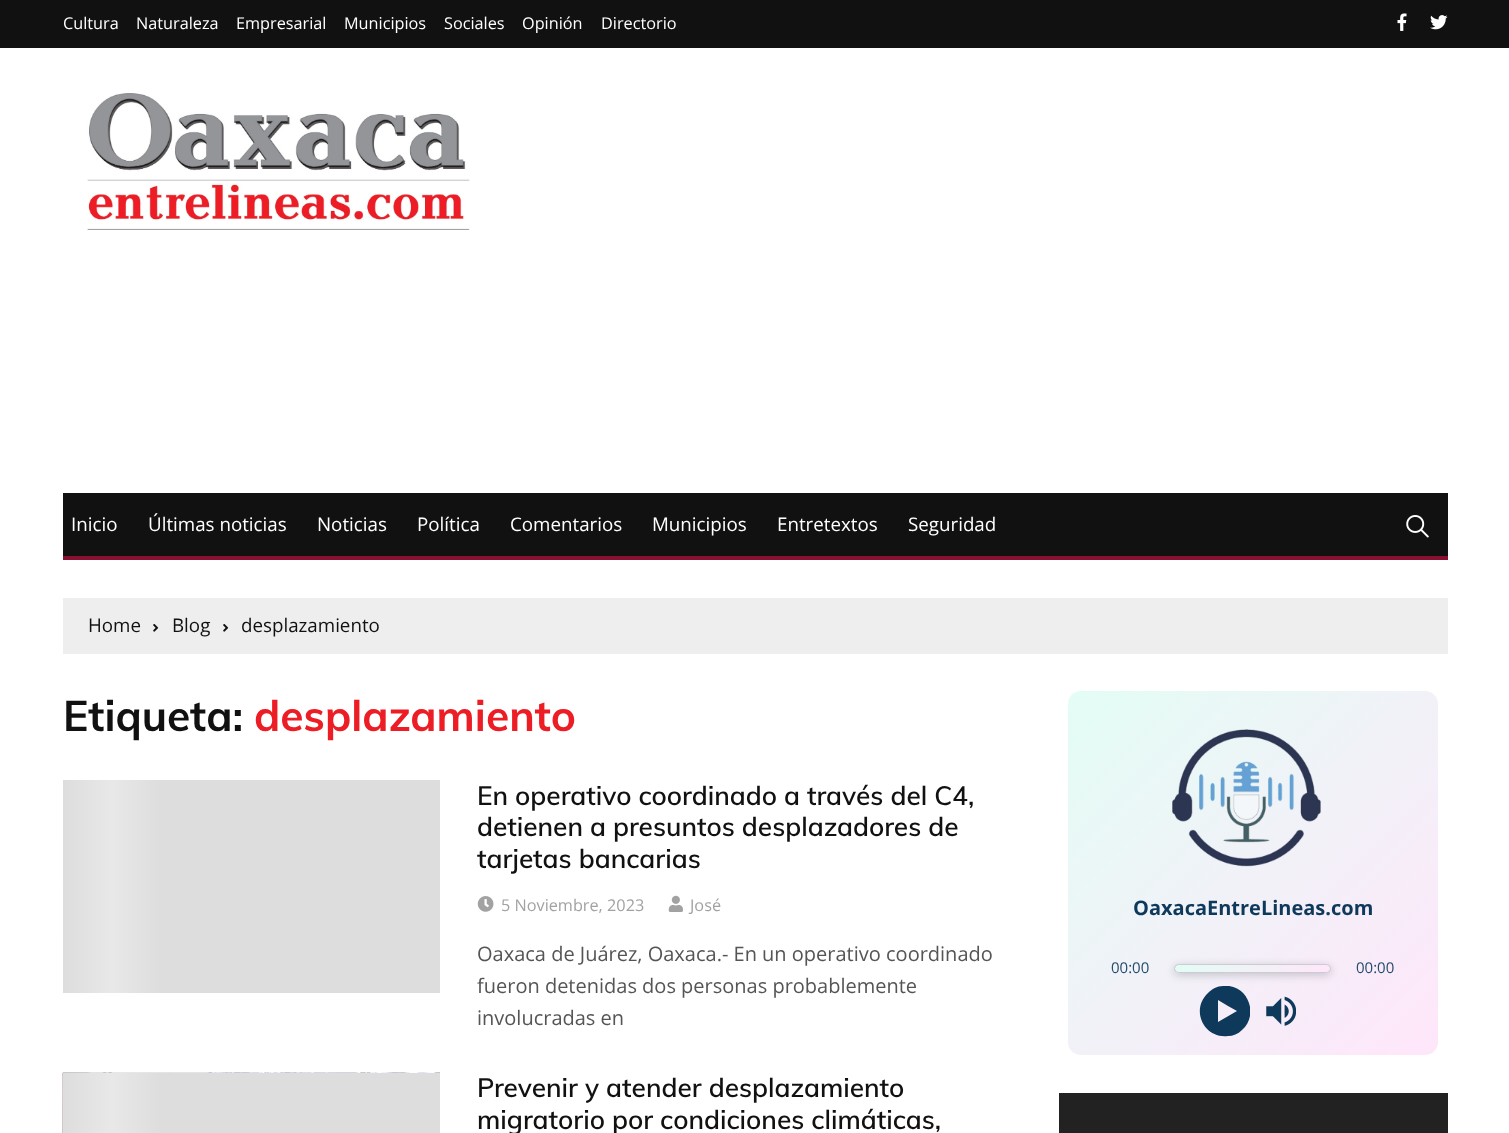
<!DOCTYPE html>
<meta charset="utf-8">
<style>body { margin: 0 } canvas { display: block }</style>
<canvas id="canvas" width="1509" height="1133"></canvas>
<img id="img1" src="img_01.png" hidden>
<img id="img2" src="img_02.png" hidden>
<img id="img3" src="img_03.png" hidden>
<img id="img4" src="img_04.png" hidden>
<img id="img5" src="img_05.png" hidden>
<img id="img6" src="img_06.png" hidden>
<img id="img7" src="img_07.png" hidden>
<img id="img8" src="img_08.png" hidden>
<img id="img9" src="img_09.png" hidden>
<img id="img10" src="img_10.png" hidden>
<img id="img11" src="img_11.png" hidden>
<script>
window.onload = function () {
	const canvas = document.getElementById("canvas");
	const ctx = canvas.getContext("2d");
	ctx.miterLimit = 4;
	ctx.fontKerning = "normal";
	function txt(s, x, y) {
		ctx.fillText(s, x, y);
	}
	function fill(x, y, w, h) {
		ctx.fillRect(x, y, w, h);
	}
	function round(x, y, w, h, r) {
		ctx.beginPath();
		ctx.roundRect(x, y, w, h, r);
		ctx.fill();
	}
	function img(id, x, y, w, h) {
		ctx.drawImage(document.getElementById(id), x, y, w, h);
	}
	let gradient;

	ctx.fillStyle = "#FFFFFF";
	fill(0, 0, 1509, 1133);
	ctx.fillStyle = "#111111";
	fill(0, 0, 1509, 48);
	img("img1", 1397, 13, 10, 18);
	img("img2", 1430, 15, 18, 15);
	img("img3", 87, 93, 383, 137);
	fill(63, 493, 1385, 63);
	ctx.fillStyle = "#891030";
	fill(63, 556, 1385, 4);
	img("img4", 1406, 515, 23, 23);
	ctx.fillStyle = "#EEEEEE";
	fill(63, 598, 1385, 56);
	img("img5", 153, 624, 6, 8);
	img("img5", 223, 624, 6, 8);
	img("img6", 62, 780, 1, 213);
	gradient = ctx.createLinearGradient(63, 886, 440, 886);
	gradient.addColorStop(0, "#DDDDDD");
	gradient.addColorStop(0.13, "#E8E8E8");
	gradient.addColorStop(0.26, "#DDDDDD");
	ctx.fillStyle = gradient;
	fill(63, 780, 377, 213);
	img("img7", 477, 896, 17, 16);
	img("img8", 668, 895, 15, 17);
	img("img9", 62, 1072, 378, 61);
	gradient = ctx.createLinearGradient(63, 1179, 440, 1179);
	gradient.addColorStop(0, "#DDDDDD");
	gradient.addColorStop(0.13, "#E8E8E8");
	gradient.addColorStop(0.26, "#DDDDDD");
	ctx.fillStyle = gradient;
	fill(63, 1073, 377, 60);
	gradient = ctx.createLinearGradient(1069, 690, 1436, 1057);
	gradient.addColorStop(0, "#E3FDF5");
	gradient.addColorStop(1, "#FFE6FA");
	ctx.fillStyle = gradient;
	round(1068, 691, 370, 364, 13);
	img("img10", 1172, 729, 149, 138);
	ctx.fillStyle = "rgba(0, 9, 27, 0.2)";
	ctx.filter = "blur(4.5px)";
	ctx.beginPath();
	ctx.roundRect(1174, 966, 157, 9, 4.5);
	ctx.fill();
	ctx.filter = "none";
	gradient = ctx.createLinearGradient(1212, 928, 1293, 1008);
	gradient.addColorStop(0, "#E3FDF5");
	gradient.addColorStop(1, "#FFE6FA");
	ctx.fillStyle = gradient;
	fill(1175, 965, 155, 6);
	ctx.save();
	ctx.beginPath();
	ctx.roundRect(1174, 964, 157, 9, 4.5);
	ctx.clip();
	gradient = ctx.createLinearGradient(1212, 934, 1293, 1015);
	gradient.addColorStop(0, "#E3FDF5");
	gradient.addColorStop(1, "#FFE6FA");
	ctx.fillStyle = gradient;
	fill(1175, 971, 155, 2);
	ctx.restore();
	ctx.beginPath();
	ctx.roundRect(1174.5, 964.5, 156, 8, 4);
	ctx.strokeStyle = "#CCCCCC";
	ctx.stroke();
	ctx.save();
	ctx.beginPath();
	ctx.rect(1199, 986, 51, 52);
	ctx.clip();
	ctx.fillStyle = "#0E395B";
	ctx.beginPath();
	ctx.moveTo(1223, 986);
	ctx.bezierCurveTo(1217, 986, 1212, 989, 1208, 993);
	ctx.bezierCurveTo(1190, 1010, 1204, 1039, 1228, 1036);
	ctx.bezierCurveTo(1233, 1036, 1238, 1034, 1242, 1030);
	ctx.bezierCurveTo(1260, 1014, 1247, 983, 1223, 986);
	ctx.closePath();
	ctx.moveTo(1228, 1006);
	ctx.lineTo(1237, 1011);
	ctx.lineTo(1218, 1022);
	ctx.lineTo(1218, 1000);
	ctx.closePath();
	ctx.fill();
	ctx.restore();
	img("img11", 1266, 996, 30, 30);
	ctx.fillStyle = "#222222";
	fill(1059, 1093, 389, 40);
	ctx.font = "16.25px Open Sans";
	ctx.fillStyle = "#FFFFFF";
	txt("Cultura", 63, 29);
	txt("Naturaleza", 136, 29);
	txt("Empresarial", 236, 29);
	txt("Municipios", 344, 29);
	txt("Sociales", 444, 29);
	txt("Opinión", 522, 29);
	txt("Directorio", 601, 29);
	ctx.font = "18.75px Open Sans";
	txt("Inicio", 71, 531);
	txt("Últimas noticias", 148, 531);
	txt("Noticias", 317, 531);
	txt("Política", 417, 531);
	txt("Comentarios", 510, 531);
	txt("Municipios", 652, 531);
	txt("Entretextos", 777, 531);
	txt("Seguridad", 908, 531);
	ctx.fillStyle = "#111111";
	txt("Home", 88, 632);
	txt("Blog", 172, 632);
	txt("desplazamiento", 241, 632);
	ctx.font = "bold 42.5px Muli";
	txt("Etiqueta:", 63, 731);
	ctx.fillStyle = "#ED1D25";
	txt("desplazamiento", 254, 731);
	ctx.font = "600 26.25px Muli";
	ctx.fillStyle = "#111111";
	txt("En operativo coordinado a través del C4,", 477, 805);
	txt("detienen a presuntos desplazadores de", 477, 836);
	txt("tarjetas bancarias", 477, 868);
	ctx.font = "16.25px Open Sans";
	ctx.fillStyle = "#A2A2A2";
	txt("5 Noviembre, 2023", 501, 911);
	txt("José", 690, 911);
	ctx.font = "20px Open Sans";
	ctx.fillStyle = "#555555";
	txt("Oaxaca de Juárez, Oaxaca.- En un operativo coordinado", 477, 961);
	txt("fueron detenidas dos personas probablemente", 477, 993);
	txt("involucradas en", 477, 1025);
	ctx.font = "600 26.25px Muli";
	ctx.fillStyle = "#111111";
	txt("Prevenir y atender desplazamiento", 477, 1097);
	txt("migratorio por condiciones climáticas,", 477, 1129);
	ctx.font = "bold 20px Open Sans";
	ctx.fillStyle = "#0E395B";
	txt("OaxacaEntreLineas.com", 1133, 915);
	ctx.font = "15px Open Sans";
	ctx.fillStyle = "#254C6B";
	txt("00:00", 1111, 973);
	txt("00:00", 1356, 973);
};
</script>
